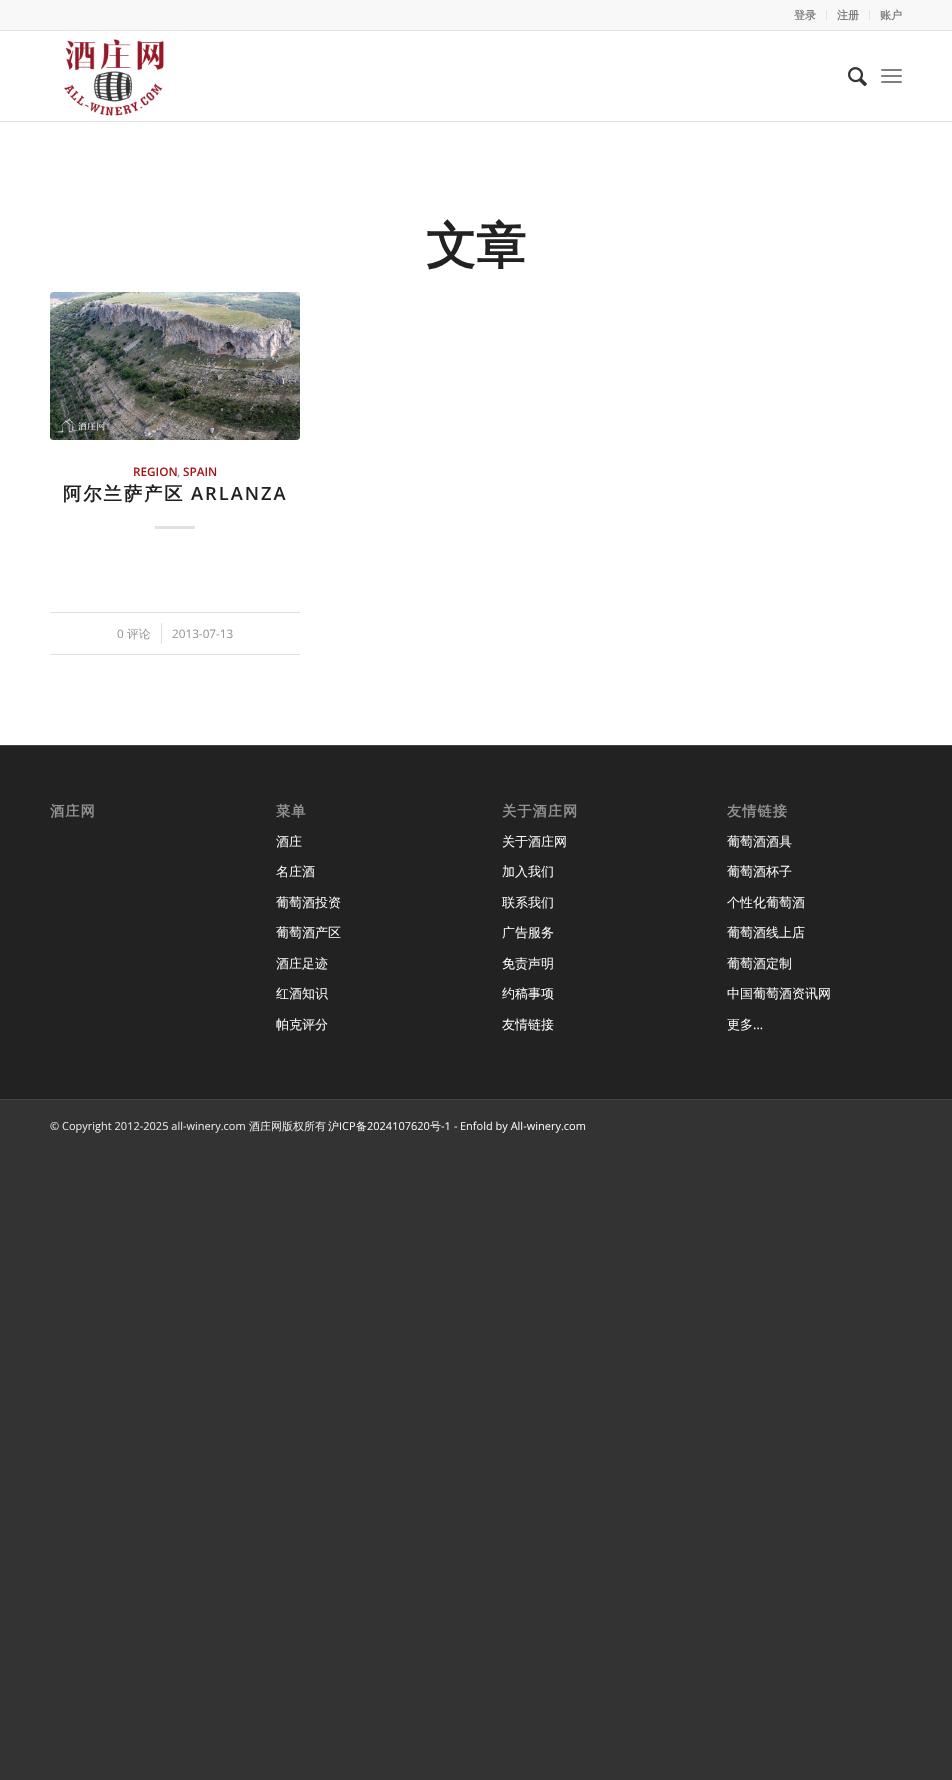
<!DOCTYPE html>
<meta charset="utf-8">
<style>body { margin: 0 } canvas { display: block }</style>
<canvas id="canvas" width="952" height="1780"></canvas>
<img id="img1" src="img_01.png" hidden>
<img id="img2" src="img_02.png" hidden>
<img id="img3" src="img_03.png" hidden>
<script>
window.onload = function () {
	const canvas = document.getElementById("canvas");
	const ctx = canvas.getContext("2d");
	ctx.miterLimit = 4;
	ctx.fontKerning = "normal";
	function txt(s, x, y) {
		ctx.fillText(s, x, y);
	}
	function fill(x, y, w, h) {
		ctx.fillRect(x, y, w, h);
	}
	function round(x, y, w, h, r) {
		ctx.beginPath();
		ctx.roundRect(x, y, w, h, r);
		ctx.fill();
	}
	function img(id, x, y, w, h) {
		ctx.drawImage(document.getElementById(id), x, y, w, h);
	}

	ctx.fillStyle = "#333333";
	fill(0, 0, 952, 1780);
	ctx.fillStyle = "#F8F8F8";
	fill(0, 0, 952, 30);
	ctx.fillStyle = "#E1E1E1";
	fill(0, 30, 952, 1);
	fill(826, 10, 1, 10);
	fill(869, 10, 1, 10);
	ctx.fillStyle = "#FFFFFF";
	fill(0, 31, 952, 90);
	ctx.fillStyle = "#E1E1E1";
	fill(0, 121, 952, 1);
	img("img1", 64, 39, 100, 77);
	img("img2", 848, 67, 19, 20);
	ctx.fillStyle = "#808080";
	round(881, 75, 21, 2, 1);
	round(881, 69, 21, 2, 1);
	round(881, 81, 21, 2, 1);
	ctx.fillStyle = "#FFFFFF";
	fill(0, 122, 952, 623);
	ctx.fillStyle = "#FCFCFC";
	round(50, 292, 250, 148, 3);
	img("img3", 50, 292, 250, 148);
	ctx.fillStyle = "#E1E1E1";
	fill(155, 526, 40, 3);
	fill(50, 612, 250, 1);
	fill(50, 654, 250, 1);
	fill(161, 623, 1, 21);
	ctx.fillStyle = "#222222";
	fill(0, 746, 952, 353);
	ctx.fillStyle = "#444444";
	fill(0, 745, 952, 1);
	fill(0, 1099, 952, 1);
	ctx.font = "bold 11px WenQuanYi Zen Hei";
	ctx.fillStyle = "#808080";
	txt("登录", 794, 19);
	txt("注册", 837, 19);
	txt("账户", 880, 19);
	ctx.font = "bold 50px WenQuanYi Zen Hei";
	ctx.fillStyle = "#222222";
	txt("文章", 426, 263);
	ctx.font = "600 11.75px Open Sans";
	ctx.fillStyle = "#A81010";
	txt("REGION", 133, 476);
	ctx.fillStyle = "#919191";
	txt(",", 177, 476);
	ctx.fillStyle = "#A81010";
	txt("SPAIN", 183, 476);
	ctx.letterSpacing = "2px";
	ctx.font = "bold 18.25px WenQuanYi Zen Hei";
	ctx.fillStyle = "#222222";
	txt("阿尔兰萨产区", 63, 500);
	ctx.font = "600 18.25px Open Sans";
	txt("ARLANZA", 191, 500);
	ctx.letterSpacing = "0px";
	ctx.font = "11.75px Open Sans";
	ctx.fillStyle = "#919191";
	txt("0", 117, 638);
	ctx.font = "500 11.75px WenQuanYi Zen Hei";
	txt("评论", 127, 638);
	ctx.font = "11.75px Open Sans";
	txt("2013-07-13", 172, 638);
	ctx.letterSpacing = "1px";
	ctx.font = "bold 14.25px WenQuanYi Zen Hei";
	txt("酒庄网", 50, 816);
	txt("菜单", 276, 816);
	ctx.letterSpacing = "0px";
	ctx.font = "500 13px WenQuanYi Zen Hei";
	ctx.fillStyle = "#FFFFFF";
	txt("酒庄", 276, 846);
	txt("名庄酒", 276, 876);
	txt("葡萄酒投资", 276, 907);
	txt("葡萄酒产区", 276, 937);
	txt("酒庄足迹", 276, 968);
	txt("红酒知识", 276, 998);
	txt("帕克评分", 276, 1029);
	ctx.letterSpacing = "1px";
	ctx.font = "bold 14.25px WenQuanYi Zen Hei";
	ctx.fillStyle = "#919191";
	txt("关于酒庄网", 502, 816);
	ctx.letterSpacing = "0px";
	ctx.font = "500 13px WenQuanYi Zen Hei";
	ctx.fillStyle = "#FFFFFF";
	txt("关于酒庄网", 502, 846);
	txt("加入我们", 502, 876);
	ctx.save();
	ctx.beginPath();
	ctx.rect(502, 791, 174, 249);
	ctx.clip();
	txt("联系我们", 502, 907);
	ctx.restore();
	txt("广告服务", 502, 937);
	txt("免责声明", 502, 968);
	ctx.save();
	ctx.beginPath();
	ctx.rect(502, 791, 174, 249);
	ctx.clip();
	txt("约稿事项", 502, 998);
	ctx.restore();
	txt("友情链接", 502, 1029);
	ctx.letterSpacing = "1px";
	ctx.font = "bold 14.25px WenQuanYi Zen Hei";
	ctx.fillStyle = "#919191";
	txt("友情链接", 727, 816);
	ctx.letterSpacing = "0px";
	ctx.font = "500 13px WenQuanYi Zen Hei";
	ctx.fillStyle = "#FFFFFF";
	txt("葡萄酒酒具", 727, 846);
	txt("葡萄酒杯子", 727, 876);
	txt("个性化葡萄酒", 727, 907);
	txt("葡萄酒线上店", 727, 937);
	txt("葡萄酒定制", 727, 968);
	txt("中国葡萄酒资讯网", 727, 998);
	txt("更多", 727, 1029);
	ctx.font = "13px Open Sans";
	txt("…", 753, 1029);
	ctx.font = "11px Open Sans";
	ctx.fillStyle = "#EEEEEE";
	txt("© Copyright 2012-2025 all-winery.com", 50, 1130);
	ctx.font = "500 11px WenQuanYi Zen Hei";
	txt("酒庄网版权所有", 249, 1130);
	ctx.fillStyle = "#FFFFFF";
	txt("沪", 328, 1130);
	ctx.font = "11px Open Sans";
	txt("ICP", 339, 1130);
	ctx.font = "500 11px WenQuanYi Zen Hei";
	txt("备", 356, 1130);
	ctx.font = "11px Open Sans";
	txt("2024107620", 367, 1130);
	ctx.font = "500 11px WenQuanYi Zen Hei";
	txt("号", 430, 1130);
	ctx.font = "11px Open Sans";
	txt("-1", 441, 1130);
	ctx.fillStyle = "#EEEEEE";
	txt("-", 454, 1130);
	ctx.fillStyle = "#FFFFFF";
	txt("Enfold by All-winery.com", 460, 1130);
};
</script>
